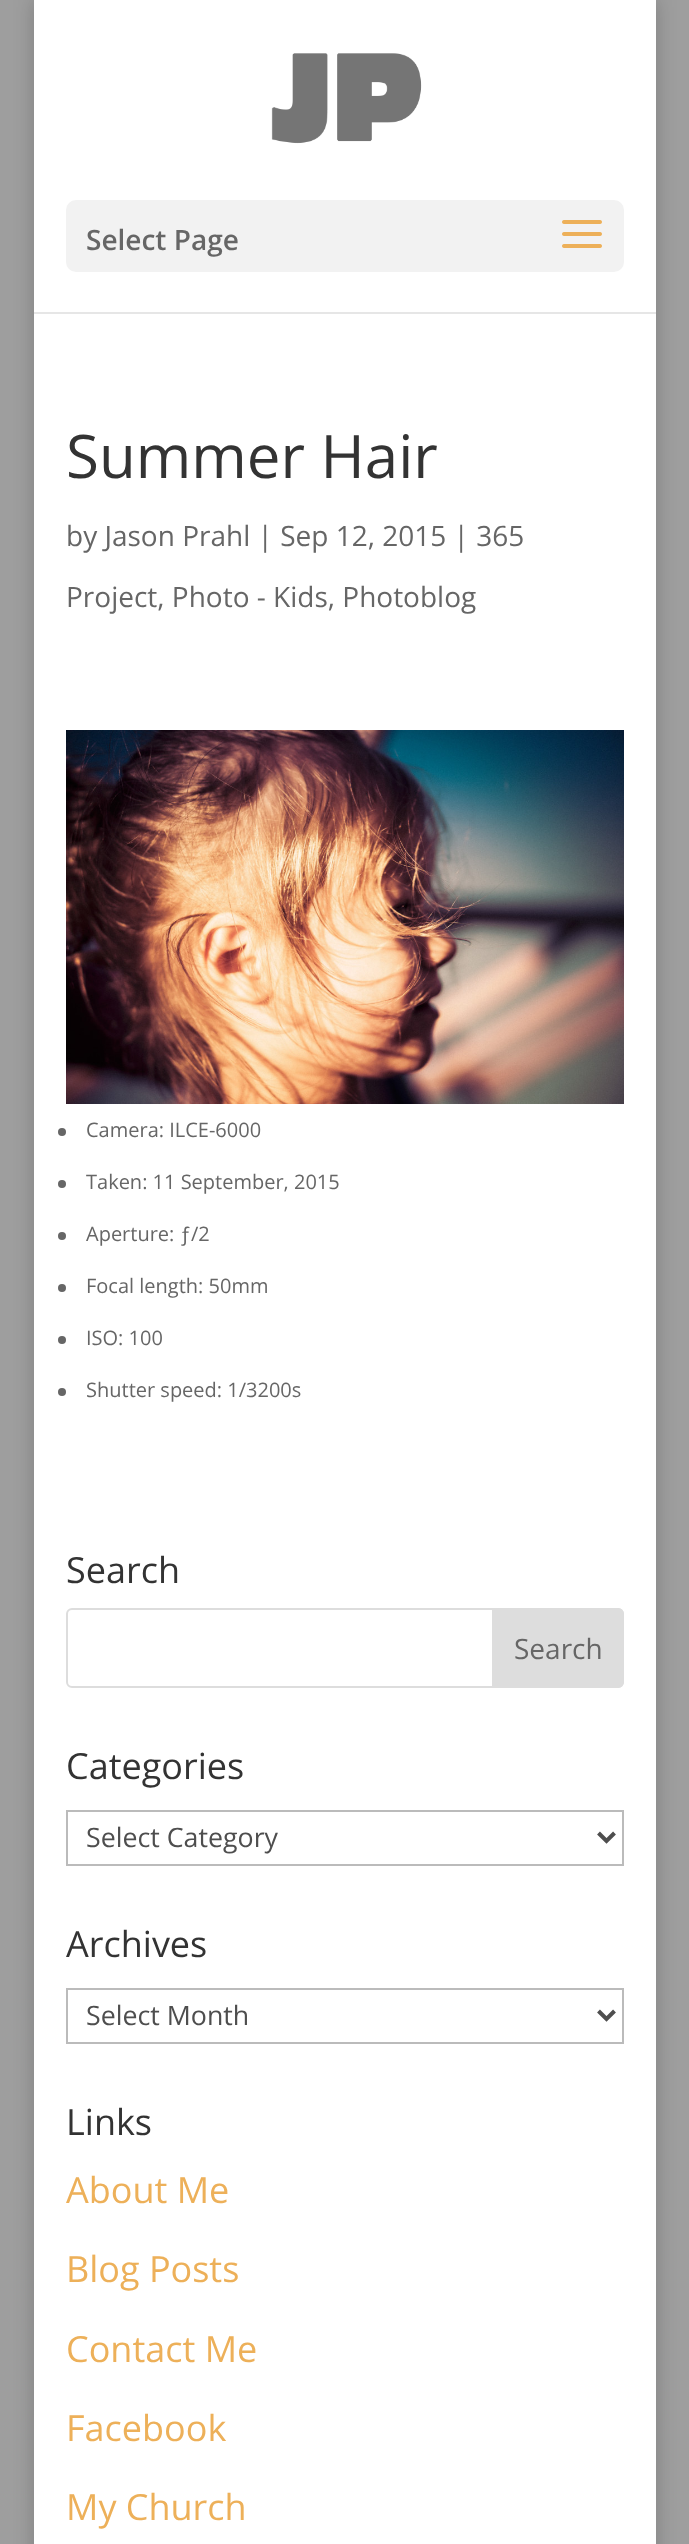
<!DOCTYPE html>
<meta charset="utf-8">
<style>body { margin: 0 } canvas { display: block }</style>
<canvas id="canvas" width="689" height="2544"></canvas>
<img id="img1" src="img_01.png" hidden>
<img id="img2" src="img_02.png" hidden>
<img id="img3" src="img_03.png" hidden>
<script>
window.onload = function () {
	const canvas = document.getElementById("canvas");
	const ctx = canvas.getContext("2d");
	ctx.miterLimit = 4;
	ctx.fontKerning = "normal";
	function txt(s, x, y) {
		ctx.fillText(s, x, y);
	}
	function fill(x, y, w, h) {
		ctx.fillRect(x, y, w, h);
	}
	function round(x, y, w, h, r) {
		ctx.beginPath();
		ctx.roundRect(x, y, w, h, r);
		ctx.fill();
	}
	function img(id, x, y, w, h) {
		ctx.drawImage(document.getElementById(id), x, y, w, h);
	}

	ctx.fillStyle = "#9E9E9E";
	fill(0, 0, 689, 2544);
	ctx.fillStyle = "rgba(0, 0, 0, 0.2)";
	ctx.filter = "blur(10px)";
	ctx.beginPath();
	ctx.rect(34, 0, 622, 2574);
	ctx.fill();
	ctx.filter = "none";
	ctx.fillStyle = "#E6E6E6";
	fill(34, 312, 622, 2);
	ctx.fillStyle = "#FFFFFF";
	fill(34, 0, 622, 312);
	img("img1", 271, 53, 151, 91);
	ctx.fillStyle = "#F2F2F2";
	round(66, 200, 558, 72, 10);
	img("img2", 562, 220, 40, 28);
	ctx.fillStyle = "#FFFFFF";
	fill(34, 314, 622, 2230);
	img("img3", 66, 730, 558, 374);
	ctx.fillStyle = "#666666";
	ctx.beginPath();
	ctx.arc(62, 1132, 4, 0, Math.PI * 2);
	ctx.fill();
	ctx.beginPath();
	ctx.arc(62, 1184, 4, 0, Math.PI * 2);
	ctx.fill();
	ctx.beginPath();
	ctx.arc(62, 1236, 4, 0, Math.PI * 2);
	ctx.fill();
	ctx.beginPath();
	ctx.arc(62, 1288, 4, 0, Math.PI * 2);
	ctx.fill();
	ctx.beginPath();
	ctx.arc(62, 1340, 4, 0, Math.PI * 2);
	ctx.fill();
	ctx.beginPath();
	ctx.arc(62, 1392, 4, 0, Math.PI * 2);
	ctx.fill();
	ctx.beginPath();
	ctx.roundRect(67, 1609, 556, 78, 5);
	ctx.strokeStyle = "#DDDDDD";
	ctx.lineWidth = 2;
	ctx.stroke();
	ctx.fillStyle = "#DDDDDD";
	ctx.beginPath();
	ctx.roundRect(493, 1609, 130, 78, [0, 5, 5, 0]);
	ctx.fill();
	ctx.stroke();
	ctx.strokeStyle = "#BBBBBB";
	ctx.strokeRect(67, 1811, 556, 54);
	ctx.beginPath();
	ctx.moveTo(598.5, 1833);
	ctx.lineTo(606.5, 1841);
	ctx.lineTo(614.5, 1833);
	ctx.strokeStyle = "#4E4E4E";
	ctx.lineWidth = 4;
	ctx.stroke();
	ctx.strokeStyle = "#BBBBBB";
	ctx.lineWidth = 2;
	ctx.strokeRect(67, 1989, 556, 54);
	ctx.beginPath();
	ctx.moveTo(598.5, 2011);
	ctx.lineTo(606.5, 2019);
	ctx.lineTo(614.5, 2011);
	ctx.strokeStyle = "#4E4E4E";
	ctx.lineWidth = 4;
	ctx.stroke();
	ctx.font = "600 28px Open Sans";
	ctx.fillStyle = "#666666";
	txt("Select Page", 86, 250);
	ctx.font = "60px Open Sans";
	ctx.fillStyle = "#333333";
	txt("Summer Hair", 66, 478);
	ctx.font = "28px Open Sans";
	ctx.fillStyle = "#666666";
	txt("by Jason Prahl | Sep 12, 2015 | 365", 66, 546);
	txt("Project, Photo - Kids, Photoblog", 66, 607);
	ctx.font = "20px Open Sans";
	txt("Camera: ILCE-6000", 86, 1137);
	txt("Taken: 11 September, 2015", 86, 1189);
	txt("Aperture: ƒ/2", 86, 1241);
	txt("Focal length: 50mm", 86, 1293);
	txt("ISO: 100", 86, 1345);
	txt("Shutter speed: 1/3200s", 86, 1397);
	ctx.font = "36px Open Sans";
	ctx.fillStyle = "#333333";
	txt("Search", 66, 1583);
	ctx.font = "28px Open Sans";
	ctx.fillStyle = "#666666";
	txt("Search", 514, 1659);
	ctx.font = "36px Open Sans";
	ctx.fillStyle = "#333333";
	txt("Categories", 66, 1779);
	ctx.font = "26.75px Open Sans";
	ctx.fillStyle = "#4E4E4E";
	txt("Select Category", 86, 1847);
	ctx.font = "36px Open Sans";
	ctx.fillStyle = "#333333";
	txt("Archives", 66, 1957);
	ctx.font = "26.75px Open Sans";
	ctx.fillStyle = "#4E4E4E";
	txt("Select Month", 86, 2025);
	ctx.font = "36px Open Sans";
	ctx.fillStyle = "#333333";
	txt("Links", 66, 2135);
	ctx.fillStyle = "#EDB059";
	txt("About Me", 66, 2203);
	txt("Blog Posts", 66, 2282);
	txt("Contact Me", 66, 2362);
	txt("Facebook", 66, 2441);
	txt("My Church", 66, 2520);
};
</script>
